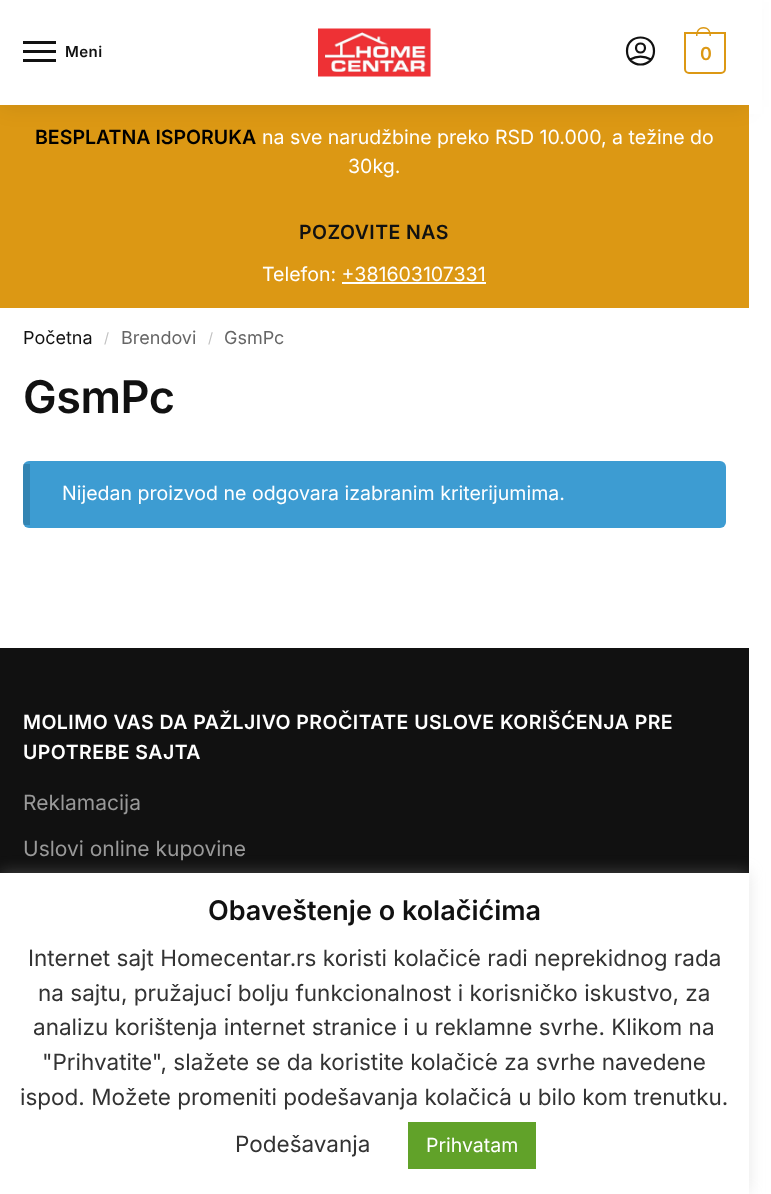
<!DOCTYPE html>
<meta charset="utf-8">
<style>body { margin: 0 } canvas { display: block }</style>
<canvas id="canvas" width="771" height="1194"></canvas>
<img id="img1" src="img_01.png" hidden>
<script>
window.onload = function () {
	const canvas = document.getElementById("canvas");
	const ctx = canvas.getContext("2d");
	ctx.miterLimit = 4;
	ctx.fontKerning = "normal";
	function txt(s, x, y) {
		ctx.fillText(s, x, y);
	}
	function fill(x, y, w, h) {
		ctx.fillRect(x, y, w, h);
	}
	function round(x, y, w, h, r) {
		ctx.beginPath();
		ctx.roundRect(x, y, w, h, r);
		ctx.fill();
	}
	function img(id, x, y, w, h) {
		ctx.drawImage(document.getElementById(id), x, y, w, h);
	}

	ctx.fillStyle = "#FFFFFF";
	fill(0, 0, 771, 1194);
	ctx.fillStyle = "#DC9814";
	fill(0, 105, 749, 203);
	ctx.fillStyle = "rgba(0, 0, 0, 0.08)";
	ctx.filter = "blur(11px)";
	ctx.beginPath();
	ctx.rect(0, 2, 749, 105);
	ctx.fill();
	ctx.filter = "none";
	ctx.fillStyle = "#FFFFFF";
	fill(0, 0, 749, 105);
	ctx.fillStyle = "#111111";
	fill(23, 41, 33, 3);
	fill(23, 50, 33, 3);
	fill(23, 59, 33, 3);
	img("img1", 318, 28, 113, 49);
	ctx.beginPath();
	ctx.moveTo(630, 59.5);
	ctx.bezierCurveTo(636.5, 56, 644.5, 56, 651, 59.5);
	ctx.moveTo(645, 48);
	ctx.bezierCurveTo(645, 54, 636, 54, 636, 48);
	ctx.bezierCurveTo(636, 42, 645, 42, 645, 48);
	ctx.closePath();
	ctx.moveTo(654, 51);
	ctx.bezierCurveTo(654, 69, 627, 69, 627, 51);
	ctx.bezierCurveTo(627, 33, 654, 33, 654, 51);
	ctx.closePath();
	ctx.strokeStyle = "#111111";
	ctx.lineWidth = 2.2;
	ctx.lineCap = "round";
	ctx.lineJoin = "round";
	ctx.stroke();
	ctx.beginPath();
	ctx.roundRect(685, 33, 40, 40, [0, 0, 4, 4]);
	ctx.strokeStyle = "#DC9814";
	ctx.lineWidth = 2;
	ctx.lineJoin = "miter";
	ctx.stroke();
	ctx.fillStyle = "#DC9814";
	ctx.beginPath();
	ctx.moveTo(703.5, 27);
	ctx.bezierCurveTo(709, 27, 711, 31.5, 711, 36);
	ctx.lineTo(696, 36);
	ctx.bezierCurveTo(696, 31.5, 698, 27, 703.5, 27);
	ctx.closePath();
	ctx.moveTo(703.5, 28.5);
	ctx.bezierCurveTo(708, 28.5, 709.5, 32, 709.5, 36);
	ctx.lineTo(697.5, 36);
	ctx.bezierCurveTo(697.5, 32, 699, 28.5, 703.5, 28.5);
	ctx.closePath();
	ctx.fill("evenodd");
	ctx.fillStyle = "#FFFFFF";
	fill(749, 0, 13, 114);
	fill(342, 282, 144, 2);
	ctx.fillStyle = "#3D9CD2";
	round(23, 461, 703, 67, 6);
	ctx.fillStyle = "rgba(0, 0, 0, 0.15)";
	fill(23, 464, 7, 61);
	ctx.fillStyle = "#111111";
	fill(0, 648, 749, 225);
	ctx.fillStyle = "rgba(172, 171, 171, 0.3)";
	ctx.filter = "blur(7.5px)";
	ctx.beginPath();
	ctx.rect(0, 872, 749, 321);
	ctx.fill();
	ctx.filter = "none";
	ctx.fillStyle = "#FFFFFF";
	fill(0, 873, 749, 321);
	ctx.fillStyle = "#61A229";
	fill(408, 1122, 128, 47);
	ctx.letterSpacing = "0.45px";
	ctx.font = "600 15px Inter";
	ctx.fillStyle = "#111111";
	txt("Meni", 65, 57);
	ctx.letterSpacing = "-1px";
	ctx.font = "600 18px Inter";
	ctx.fillStyle = "#DC9814";
	txt("0", 700, 60);
	ctx.letterSpacing = "0px";
	ctx.font = "600 19.55px Inter";
	ctx.fillStyle = "#000000";
	txt("BESPLATNA ISPORUKA", 35, 144);
	ctx.font = "19.55px Inter";
	ctx.fillStyle = "#FFFFFF";
	txt("na sve narudžbine preko RSD 10.000, a težine do", 262, 144);
	txt("30kg.", 348, 173);
	ctx.letterSpacing = "0.45px";
	ctx.font = "600 19.5px Inter";
	ctx.fillStyle = "#111111";
	txt("POZOVITE NAS", 299, 239);
	ctx.letterSpacing = "0px";
	ctx.font = "19.55px Inter";
	ctx.fillStyle = "#FFFFFF";
	txt("Telefon: +381603107331", 262, 281);
	ctx.font = "18px Inter";
	ctx.fillStyle = "#111111";
	txt("Početna", 23, 344);
	ctx.font = "14px Inter";
	ctx.fillStyle = "#C2C2C2";
	txt("/", 104, 343);
	ctx.font = "18px Inter";
	ctx.fillStyle = "#666666";
	txt("Brendovi", 121, 344);
	ctx.font = "14px Inter";
	ctx.fillStyle = "#C2C2C2";
	txt("/", 208, 343);
	ctx.font = "18px Inter";
	ctx.fillStyle = "#666666";
	txt("GsmPc", 224, 344);
	ctx.letterSpacing = "-0.5px";
	ctx.font = "600 45px Inter";
	ctx.fillStyle = "#111111";
	txt("GsmPc", 23, 413);
	ctx.letterSpacing = "0px";
	ctx.font = "19.55px Inter";
	ctx.fillStyle = "#FFFFFF";
	txt("Nijedan proizvod ne odgovara izabranim kriterijumima.", 62, 500);
	ctx.letterSpacing = "0.45px";
	ctx.font = "600 19.5px Inter";
	txt("MOLIMO VAS DA PAŽLJIVO PROČITATE USLOVE KORIŠĆENJA PRE", 23, 729);
	txt("UPOTREBE SAJTA", 23, 759);
	ctx.letterSpacing = "0px";
	ctx.font = "21px Inter";
	ctx.fillStyle = "#999999";
	txt("Reklamacija", 23, 810);
	txt("Uslovi online kupovine", 23, 856);
	ctx.font = "600 27px Inter";
	ctx.fillStyle = "#111111";
	txt("Obaveštenje o kolačićima", 208, 920);
	ctx.font = "22.5px Inter";
	ctx.fillStyle = "#333333";
	txt("Internet sajt Homecentar.rs koristi kolačiće radi neprekidnog rada", 28, 966);
	txt("na sajtu, pružajući bolju funkcionalnost i korisničko iskustvo, za", 38, 1001);
	txt("analizu korištenja internet stranice i u reklamne svrhe. Klikom na", 33, 1035);
	txt("\"Prihvatite\", slažete se da koristite kolačiće za svrhe navedene", 42, 1070);
	txt("ispod. Možete promeniti podešavanja kolačića u bilo kom trenutku.", 20, 1105);
	txt("Podešavanja", 235, 1152);
	ctx.font = "19.5px Inter";
	ctx.fillStyle = "#FFFFFF";
	txt("Prihvatam", 426, 1152);
};
</script>
